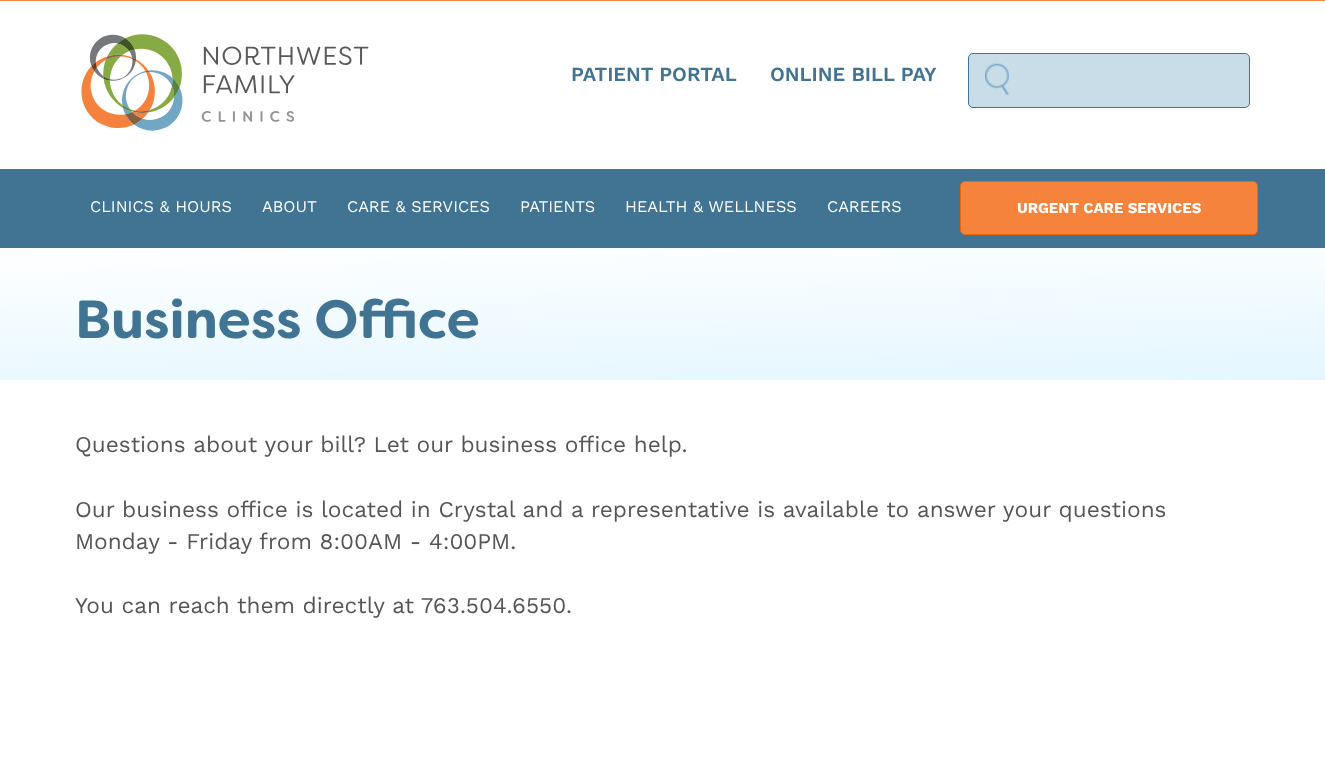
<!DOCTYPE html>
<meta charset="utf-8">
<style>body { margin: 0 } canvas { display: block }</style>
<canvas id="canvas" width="1325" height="772"></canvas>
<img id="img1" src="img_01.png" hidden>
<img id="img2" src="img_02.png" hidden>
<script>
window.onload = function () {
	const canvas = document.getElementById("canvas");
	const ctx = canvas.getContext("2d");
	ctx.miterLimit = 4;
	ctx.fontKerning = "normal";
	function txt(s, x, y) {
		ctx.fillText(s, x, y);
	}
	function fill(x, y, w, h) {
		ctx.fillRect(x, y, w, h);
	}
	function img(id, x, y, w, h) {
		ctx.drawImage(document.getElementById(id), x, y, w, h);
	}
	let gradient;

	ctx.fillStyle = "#FFFFFF";
	fill(0, 0, 1325, 772);
	ctx.fillStyle = "#F5833B";
	fill(0, 0, 1325, 1);
	img("img1", 81, 34, 288, 97);
	ctx.fillStyle = "#C8DDE8";
	ctx.beginPath();
	ctx.roundRect(968.5, 53.5, 281, 54, 4.5);
	ctx.fill();
	ctx.strokeStyle = "#407492";
	ctx.stroke();
	img("img2", 985, 63, 24, 32);
	ctx.fillStyle = "#407492";
	fill(0, 169, 1325, 79);
	ctx.fillStyle = "#F5833B";
	ctx.beginPath();
	ctx.roundRect(960.5, 181.5, 297, 53, 4.5);
	ctx.fill();
	ctx.strokeStyle = "#F1650C";
	ctx.stroke();
	gradient = ctx.createLinearGradient(665, 402, 660, 230);
	gradient.addColorStop(0, "#E3F6FF");
	gradient.addColorStop(1, "#FFFFFF");
	ctx.fillStyle = gradient;
	fill(0, 248, 1325, 132);
	ctx.font = "600 20px Work Sans";
	ctx.fillStyle = "#407492";
	txt("PATIENT PORTAL", 571, 81);
	txt("ONLINE BILL PAY", 770, 81);
	ctx.font = "16.25px Work Sans";
	ctx.fillStyle = "#FFFFFF";
	txt("CLINICS & HOURS", 90, 212);
	txt("ABOUT", 262, 212);
	txt("CARE & SERVICES", 347, 212);
	txt("PATIENTS", 520, 212);
	txt("HEALTH & WELLNESS", 625, 212);
	txt("CAREERS", 827, 212);
	ctx.font = "bold 15px Work Sans";
	txt("URGENT CARE SERVICES", 1017, 213);
	ctx.font = "bold 53.75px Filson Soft";
	ctx.fillStyle = "#407492";
	txt("Business Office", 75, 338);
	ctx.font = "22.5px 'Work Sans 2'";
	ctx.fillStyle = "#545557";
	txt("Questions about your bill? Let our business office help.", 75, 452);
	txt("Our business office is located in Crystal and a representative is available to answer your questions", 75, 517);
	txt("Monday - Friday from 8:00AM - 4:00PM.", 75, 549);
	txt("You can reach them directly at 763.504.6550.", 75, 613);
};
</script>
